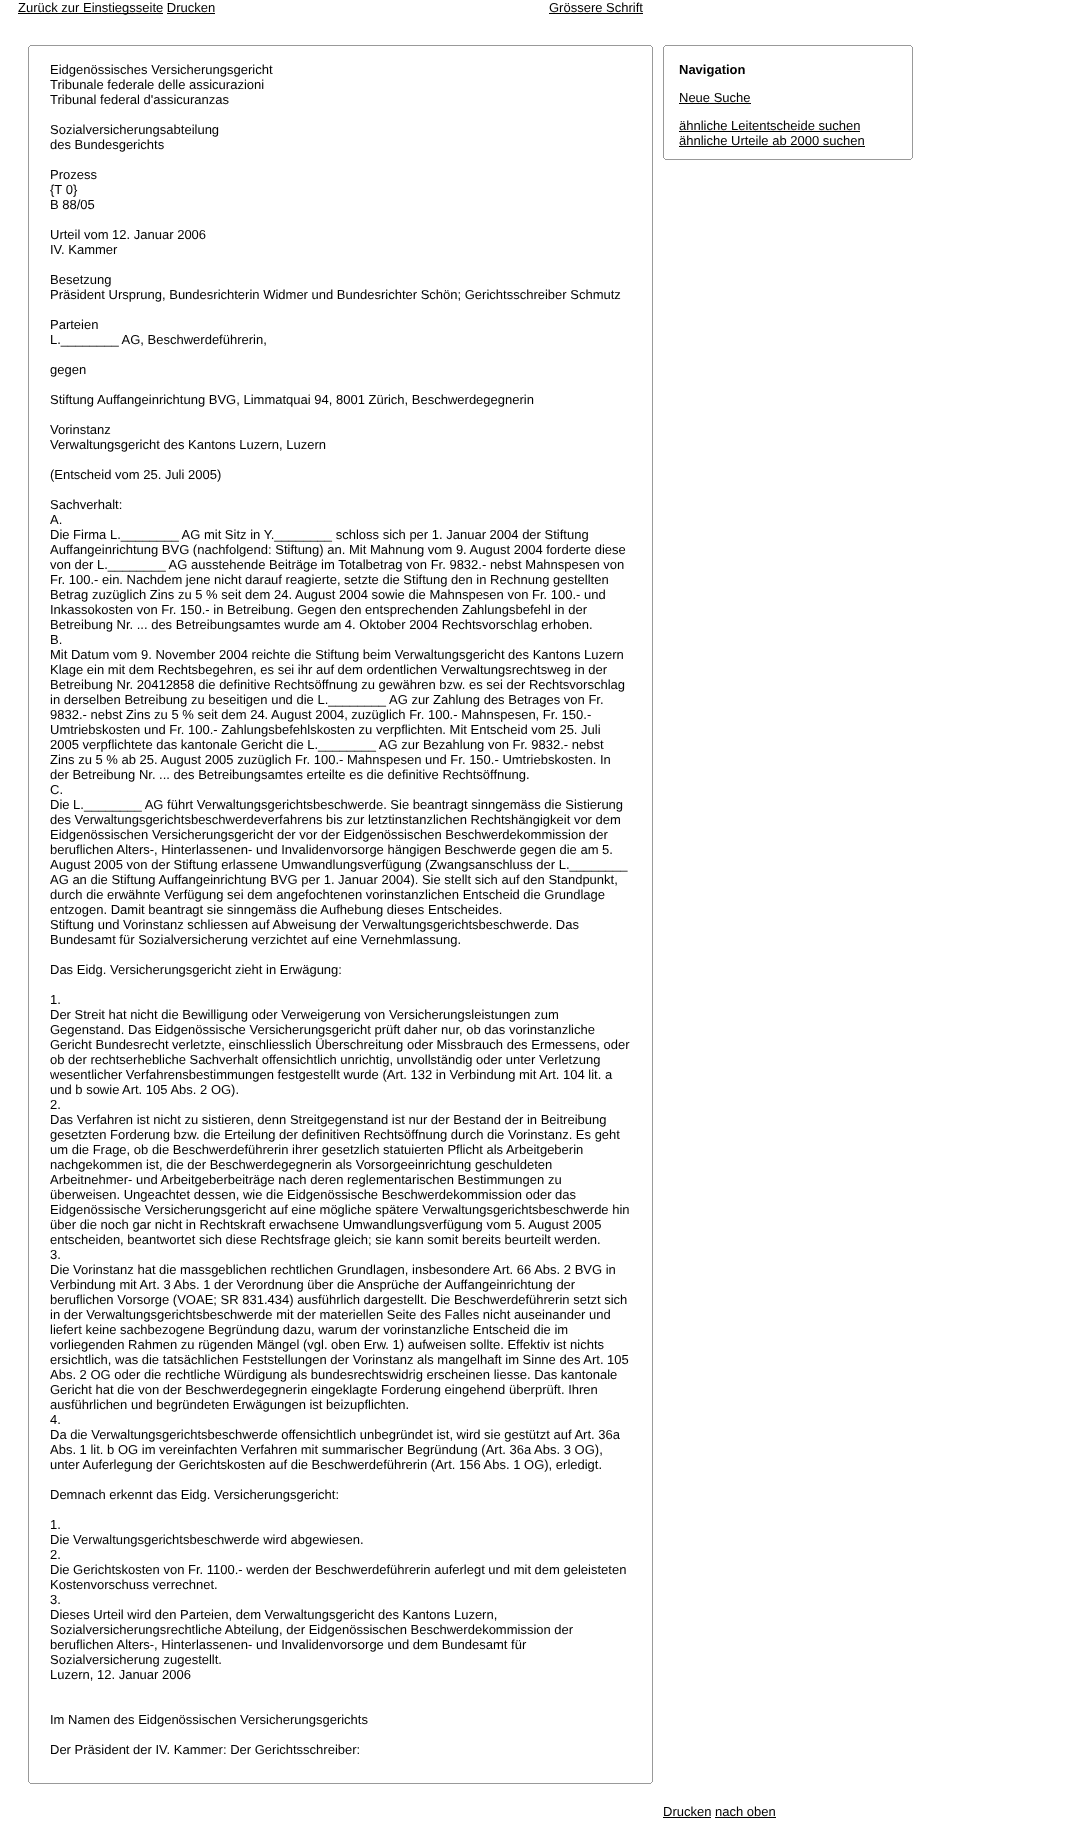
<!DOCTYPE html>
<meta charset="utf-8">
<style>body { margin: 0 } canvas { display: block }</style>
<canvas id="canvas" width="1067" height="1824"></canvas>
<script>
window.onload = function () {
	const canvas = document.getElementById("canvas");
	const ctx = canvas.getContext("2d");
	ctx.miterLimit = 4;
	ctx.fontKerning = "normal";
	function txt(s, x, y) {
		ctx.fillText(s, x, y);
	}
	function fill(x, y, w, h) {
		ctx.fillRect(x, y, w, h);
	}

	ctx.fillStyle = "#FFFFFF";
	fill(0, 0, 1067, 1824);
	ctx.fillStyle = "#000000";
	fill(18, 13, 145, 1);
	fill(167, 13, 48, 1);
	fill(549, 13, 94, 1);
	ctx.fillStyle = "#999999";
	fill(30, 45, 621, 1);
	fill(651, 46, 1, 1);
	fill(29, 46, 1, 1);
	fill(652, 47, 1, 1735);
	fill(28, 47, 1, 1735);
	fill(651, 1782, 1, 1);
	fill(29, 1782, 1, 1);
	fill(30, 1783, 621, 1);
	fill(665, 45, 246, 1);
	fill(911, 46, 1, 1);
	fill(664, 46, 1, 1);
	fill(912, 47, 1, 111);
	fill(663, 47, 1, 111);
	ctx.fillStyle = "#000000";
	fill(679, 103, 72, 1);
	fill(679, 131, 181, 1);
	fill(679, 146, 186, 1);
	ctx.fillStyle = "#999999";
	fill(911, 158, 1, 1);
	fill(664, 158, 1, 1);
	fill(665, 159, 246, 1);
	ctx.fillStyle = "#000000";
	fill(663, 1817, 48, 1);
	fill(715, 1817, 61, 1);
	ctx.font = "13px Liberation Sans";
	txt("Zurück zur Einstiegsseite Drucken", 18, 12);
	txt("Grössere Schrift", 549, 12);
	txt("Eidgenössisches Versicherungsgericht", 50, 74);
	txt("Tribunale federale delle assicurazioni", 50, 89);
	txt("Tribunal federal d'assicuranzas", 50, 104);
	txt("Sozialversicherungsabteilung", 50, 134);
	txt("des Bundesgerichts", 50, 149);
	txt("Prozess", 50, 179);
	txt("{T 0}", 50, 194);
	txt("B 88/05", 50, 209);
	txt("Urteil vom 12. Januar 2006", 50, 239);
	txt("IV. Kammer", 50, 254);
	txt("Besetzung", 50, 284);
	txt("Präsident Ursprung, Bundesrichterin Widmer und Bundesrichter Schön; Gerichtsschreiber Schmutz", 50, 299);
	txt("Parteien", 50, 329);
	txt("L.________ AG, Beschwerdeführerin,", 50, 344);
	txt("gegen", 50, 374);
	txt("Stiftung Auffangeinrichtung BVG, Limmatquai 94, 8001 Zürich, Beschwerdegegnerin", 50, 404);
	txt("Vorinstanz", 50, 434);
	txt("Verwaltungsgericht des Kantons Luzern, Luzern", 50, 449);
	txt("(Entscheid vom 25. Juli 2005)", 50, 479);
	txt("Sachverhalt:", 50, 509);
	txt("A.", 50, 524);
	txt("Die Firma L.________ AG mit Sitz in Y.________ schloss sich per 1. Januar 2004 der Stiftung", 50, 539);
	txt("Auffangeinrichtung BVG (nachfolgend: Stiftung) an. Mit Mahnung vom 9. August 2004 forderte diese", 50, 554);
	txt("von der L.________ AG ausstehende Beiträge im Totalbetrag von Fr. 9832.- nebst Mahnspesen von", 50, 569);
	txt("Fr. 100.- ein. Nachdem jene nicht darauf reagierte, setzte die Stiftung den in Rechnung gestellten", 50, 584);
	txt("Betrag zuzüglich Zins zu 5 % seit dem 24. August 2004 sowie die Mahnspesen von Fr. 100.- und", 50, 599);
	txt("Inkassokosten von Fr. 150.- in Betreibung. Gegen den entsprechenden Zahlungsbefehl in der", 50, 614);
	txt("Betreibung Nr. ... des Betreibungsamtes wurde am 4. Oktober 2004 Rechtsvorschlag erhoben.", 50, 629);
	txt("B.", 50, 644);
	txt("Mit Datum vom 9. November 2004 reichte die Stiftung beim Verwaltungsgericht des Kantons Luzern", 50, 659);
	txt("Klage ein mit dem Rechtsbegehren, es sei ihr auf dem ordentlichen Verwaltungsrechtsweg in der", 50, 674);
	txt("Betreibung Nr. 20412858 die definitive Rechtsöffnung zu gewähren bzw. es sei der Rechtsvorschlag", 50, 689);
	txt("in derselben Betreibung zu beseitigen und die L.________ AG zur Zahlung des Betrages von Fr.", 50, 704);
	txt("9832.- nebst Zins zu 5 % seit dem 24. August 2004, zuzüglich Fr. 100.- Mahnspesen, Fr. 150.-", 50, 719);
	txt("Umtriebskosten und Fr. 100.- Zahlungsbefehlskosten zu verpflichten. Mit Entscheid vom 25. Juli", 50, 734);
	txt("2005 verpflichtete das kantonale Gericht die L.________ AG zur Bezahlung von Fr. 9832.- nebst", 50, 749);
	txt("Zins zu 5 % ab 25. August 2005 zuzüglich Fr. 100.- Mahnspesen und Fr. 150.- Umtriebskosten. In", 50, 764);
	txt("der Betreibung Nr. ... des Betreibungsamtes erteilte es die definitive Rechtsöffnung.", 50, 779);
	txt("C.", 50, 794);
	txt("Die L.________ AG führt Verwaltungsgerichtsbeschwerde. Sie beantragt sinngemäss die Sistierung", 50, 809);
	txt("des Verwaltungsgerichtsbeschwerdeverfahrens bis zur letztinstanzlichen Rechtshängigkeit vor dem", 50, 824);
	txt("Eidgenössischen Versicherungsgericht der vor der Eidgenössischen Beschwerdekommission der", 50, 839);
	txt("beruflichen Alters-, Hinterlassenen- und Invalidenvorsorge hängigen Beschwerde gegen die am 5.", 50, 854);
	txt("August 2005 von der Stiftung erlassene Umwandlungsverfügung (Zwangsanschluss der L.________", 50, 869);
	txt("AG an die Stiftung Auffangeinrichtung BVG per 1. Januar 2004). Sie stellt sich auf den Standpunkt,", 50, 884);
	txt("durch die erwähnte Verfügung sei dem angefochtenen vorinstanzlichen Entscheid die Grundlage", 50, 899);
	txt("entzogen. Damit beantragt sie sinngemäss die Aufhebung dieses Entscheides.", 50, 914);
	txt("Stiftung und Vorinstanz schliessen auf Abweisung der Verwaltungsgerichtsbeschwerde. Das", 50, 929);
	txt("Bundesamt für Sozialversicherung verzichtet auf eine Vernehmlassung.", 50, 944);
	txt("Das Eidg. Versicherungsgericht zieht in Erwägung:", 50, 974);
	txt("1.", 50, 1004);
	txt("Der Streit hat nicht die Bewilligung oder Verweigerung von Versicherungsleistungen zum", 50, 1019);
	txt("Gegenstand. Das Eidgenössische Versicherungsgericht prüft daher nur, ob das vorinstanzliche", 50, 1034);
	txt("Gericht Bundesrecht verletzte, einschliesslich Überschreitung oder Missbrauch des Ermessens, oder", 50, 1049);
	txt("ob der rechtserhebliche Sachverhalt offensichtlich unrichtig, unvollständig oder unter Verletzung", 50, 1064);
	txt("wesentlicher Verfahrensbestimmungen festgestellt wurde (Art. 132 in Verbindung mit Art. 104 lit. a", 50, 1079);
	txt("und b sowie", 50, 1094);
	txt("Art. 105 Abs. 2 OG).", 122, 1094);
	txt("2.", 50, 1109);
	txt("Das Verfahren ist nicht zu sistieren, denn Streitgegenstand ist nur der Bestand der in Beitreibung", 50, 1124);
	txt("gesetzten Forderung bzw. die Erteilung der definitiven Rechtsöffnung durch die Vorinstanz. Es geht", 50, 1139);
	txt("um die Frage, ob die Beschwerdeführerin ihrer gesetzlich statuierten Pflicht als Arbeitgeberin", 50, 1154);
	txt("nachgekommen ist, die der Beschwerdegegnerin als Vorsorgeeinrichtung geschuldeten", 50, 1169);
	txt("Arbeitnehmer- und Arbeitgeberbeiträge nach deren reglementarischen Bestimmungen zu", 50, 1184);
	txt("überweisen. Ungeachtet dessen, wie die Eidgenössische Beschwerdekommission oder das", 50, 1199);
	txt("Eidgenössische Versicherungsgericht auf eine mögliche spätere Verwaltungsgerichtsbeschwerde hin", 50, 1214);
	txt("über die noch gar nicht in Rechtskraft erwachsene Umwandlungsverfügung vom 5. August 2005", 50, 1229);
	txt("entscheiden, beantwortet sich diese Rechtsfrage gleich; sie kann somit bereits beurteilt werden.", 50, 1244);
	txt("3.", 50, 1259);
	txt("Die Vorinstanz hat die massgeblichen rechtlichen Grundlagen, insbesondere Art. 66 Abs. 2 BVG in", 50, 1274);
	txt("Verbindung mit Art. 3 Abs. 1 der Verordnung über die Ansprüche der Auffangeinrichtung der", 50, 1289);
	txt("beruflichen Vorsorge (VOAE; SR 831.434) ausführlich dargestellt. Die Beschwerdeführerin setzt sich", 50, 1304);
	txt("in der Verwaltungsgerichtsbeschwerde mit der materiellen Seite des Falles nicht auseinander und", 50, 1319);
	txt("liefert keine sachbezogene Begründung dazu, warum der vorinstanzliche Entscheid die im", 50, 1334);
	txt("vorliegenden Rahmen zu rügenden Mängel (vgl. oben Erw. 1) aufweisen sollte. Effektiv ist nichts", 50, 1349);
	txt("ersichtlich, was die tatsächlichen Feststellungen der Vorinstanz als mangelhaft im Sinne des Art. 105", 50, 1364);
	txt("Abs. 2 OG oder die rechtliche Würdigung als bundesrechtswidrig erscheinen liesse. Das kantonale", 50, 1379);
	txt("Gericht hat die von der Beschwerdegegnerin eingeklagte Forderung eingehend überprüft. Ihren", 50, 1394);
	txt("ausführlichen und begründeten Erwägungen ist beizupflichten.", 50, 1409);
	txt("4.", 50, 1424);
	txt("Da die Verwaltungsgerichtsbeschwerde offensichtlich unbegründet ist, wird sie gestützt auf Art. 36a", 50, 1439);
	txt("Abs. 1 lit. b OG im vereinfachten Verfahren mit summarischer Begründung (Art. 36a Abs. 3 OG),", 50, 1454);
	txt("unter Auferlegung der Gerichtskosten auf die Beschwerdeführerin (Art. 156 Abs. 1 OG), erledigt.", 50, 1469);
	txt("Demnach erkennt das Eidg. Versicherungsgericht:", 50, 1499);
	txt("1.", 50, 1529);
	txt("Die Verwaltungsgerichtsbeschwerde wird abgewiesen.", 50, 1544);
	txt("2.", 50, 1559);
	txt("Die Gerichtskosten von Fr. 1100.- werden der Beschwerdeführerin auferlegt und mit dem geleisteten", 50, 1574);
	txt("Kostenvorschuss verrechnet.", 50, 1589);
	txt("3.", 50, 1604);
	txt("Dieses Urteil wird den Parteien, dem Verwaltungsgericht des Kantons Luzern,", 50, 1619);
	txt("Sozialversicherungsrechtliche Abteilung, der Eidgenössischen Beschwerdekommission der", 50, 1634);
	txt("beruflichen Alters-, Hinterlassenen- und Invalidenvorsorge und dem Bundesamt für", 50, 1649);
	txt("Sozialversicherung zugestellt.", 50, 1664);
	txt("Luzern, 12. Januar 2006", 50, 1679);
	txt("Im Namen des Eidgenössischen Versicherungsgerichts", 50, 1724);
	txt("Der Präsident der IV. Kammer: Der Gerichtsschreiber:", 50, 1754);
	ctx.font = "bold 13px Liberation Sans";
	txt("Navigation", 679, 74);
	ctx.font = "13px Liberation Sans";
	txt("Neue Suche", 679, 102);
	txt("ähnliche Leitentscheide suchen", 679, 130);
	txt("ähnliche Urteile ab 2000 suchen", 679, 145);
	txt("Drucken nach oben", 663, 1816);
};
</script>
